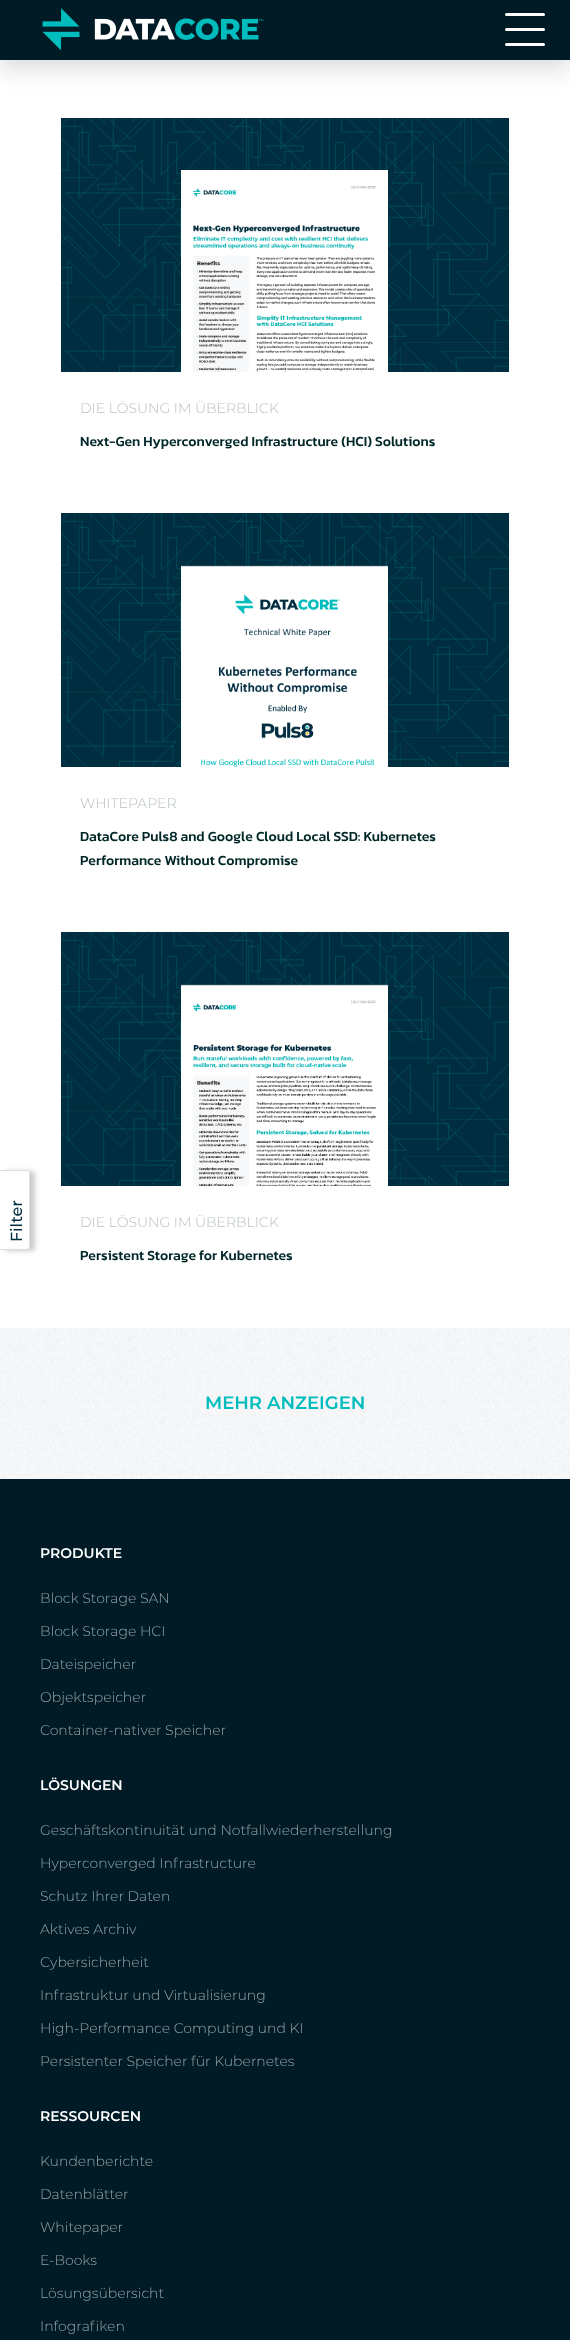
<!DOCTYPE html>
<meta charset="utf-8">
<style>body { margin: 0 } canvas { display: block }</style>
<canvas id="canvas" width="570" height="2340"></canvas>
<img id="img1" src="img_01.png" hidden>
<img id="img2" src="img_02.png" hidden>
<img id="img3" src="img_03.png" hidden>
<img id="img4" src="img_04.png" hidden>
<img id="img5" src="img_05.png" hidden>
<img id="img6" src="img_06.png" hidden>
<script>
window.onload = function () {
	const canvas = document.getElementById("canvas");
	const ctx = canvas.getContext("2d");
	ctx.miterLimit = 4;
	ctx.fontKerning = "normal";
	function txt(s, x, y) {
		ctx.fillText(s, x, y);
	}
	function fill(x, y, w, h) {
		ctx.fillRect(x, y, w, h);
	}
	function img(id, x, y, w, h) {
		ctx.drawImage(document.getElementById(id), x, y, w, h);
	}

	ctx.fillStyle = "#FFFFFF";
	fill(0, 0, 570, 2340);
	ctx.fillStyle = "rgba(0, 0, 0, 0.15)";
	ctx.filter = "blur(12px)";
	ctx.beginPath();
	ctx.rect(0, 8, 570, 60);
	ctx.fill();
	ctx.filter = "none";
	ctx.fillStyle = "#001B26";
	fill(0, 0, 570, 60);
	img("img1", 42, 8, 222, 43);
	ctx.fillStyle = "#FFFFFF";
	ctx.beginPath();
	ctx.roundRect(505, 13, 20, 3, [1.5, 0, 0, 1.5]);
	ctx.fill();
	ctx.beginPath();
	ctx.roundRect(525, 13, 20, 3, [0, 1.5, 1.5, 0]);
	ctx.fill();
	ctx.beginPath();
	ctx.roundRect(505, 28, 20, 3, [1.5, 0, 0, 1.5]);
	ctx.fill();
	ctx.beginPath();
	ctx.roundRect(525, 28, 20, 3, [0, 1.5, 1.5, 0]);
	ctx.fill();
	ctx.beginPath();
	ctx.roundRect(505, 43, 20, 3, [1.5, 0, 0, 1.5]);
	ctx.fill();
	ctx.beginPath();
	ctx.roundRect(525, 43, 20, 3, [0, 1.5, 1.5, 0]);
	ctx.fill();
	ctx.fillStyle = "rgba(0, 0, 0, 0.2)";
	ctx.filter = "blur(2.5px)";
	ctx.beginPath();
	ctx.roundRect(5, 1171, 30, 80, 4);
	ctx.fill();
	ctx.filter = "none";
	ctx.fillStyle = "#FFFFFF";
	ctx.beginPath();
	ctx.roundRect(0, 1170, 30, 80, [0, 4, 4, 0]);
	ctx.fill();
	ctx.fillStyle = "#DDDDDD";
	ctx.beginPath();
	ctx.moveTo(0, 1170);
	ctx.lineTo(26, 1170);
	ctx.bezierCurveTo(28, 1170, 30, 1172, 30, 1174);
	ctx.lineTo(30, 1246);
	ctx.bezierCurveTo(30, 1248, 28, 1250, 26, 1250);
	ctx.lineTo(0, 1250);
	ctx.closePath();
	ctx.moveTo(0, 1171);
	ctx.lineTo(26, 1171);
	ctx.bezierCurveTo(28, 1171, 29, 1172, 29, 1174);
	ctx.lineTo(29, 1246);
	ctx.bezierCurveTo(29, 1248, 28, 1249, 26, 1249);
	ctx.lineTo(0, 1249);
	ctx.closePath();
	ctx.fill("evenodd");
	img("img2", 61, 118, 448, 254);
	img("img3", 181, 170, 207, 202);
	img("img2", 61, 513, 448, 254);
	img("img4", 181, 565, 207, 202);
	img("img2", 61, 932, 448, 254);
	img("img5", 181, 984, 207, 202);
	img("img6", 0, 1328, 570, 151);
	ctx.fillStyle = "#001B26";
	fill(0, 1479, 570, 861);
	ctx.font = "500 16px Montserrat";
	ctx.fillStyle = "#002D3F";
	ctx.save();
	ctx.translate(22, 1242);
	ctx.rotate(-90 * Math.PI / 180);
	ctx.fillText("Filter", 0, 0);
	ctx.restore();
	ctx.font = "300 14px Montserrat";
	ctx.fillStyle = "#B8C0C0";
	txt("DIE LÖSUNG IM ÜBERBLICK", 80, 413);
	ctx.font = "500 14px Kanit";
	ctx.fillStyle = "#002628";
	txt("Next-Gen Hyperconverged Infrastructure (HCI) Solutions", 80, 446);
	ctx.font = "300 14px Montserrat";
	ctx.fillStyle = "#B8C0C0";
	txt("WHITEPAPER", 80, 808);
	ctx.font = "500 14px Kanit";
	ctx.fillStyle = "#002628";
	txt("DataCore Puls8 and Google Cloud Local SSD: Kubernetes", 80, 841);
	txt("Performance Without Compromise", 80, 865);
	ctx.font = "300 14px Montserrat";
	ctx.fillStyle = "#B8C0C0";
	txt("DIE LÖSUNG IM ÜBERBLICK", 80, 1227);
	ctx.font = "500 14px Kanit";
	ctx.fillStyle = "#002628";
	txt("Persistent Storage for Kubernetes", 80, 1260);
	ctx.font = "600 18px Montserrat";
	ctx.fillStyle = "#00BCBC";
	txt("MEHR ANZEIGEN", 205, 1409);
	ctx.font = "600 14px Montserrat";
	ctx.fillStyle = "#FFFFFF";
	txt("PRODUKTE", 40, 1558);
	ctx.font = "300 14px Montserrat";
	ctx.fillStyle = "#99A4A8";
	txt("Block Storage SAN", 40, 1603);
	txt("Block Storage HCI", 40, 1636);
	txt("Dateispeicher", 40, 1669);
	txt("Objektspeicher", 40, 1702);
	txt("Container-nativer Speicher", 40, 1735);
	ctx.font = "600 14px Montserrat";
	ctx.fillStyle = "#FFFFFF";
	txt("LÖSUNGEN", 40, 1790);
	ctx.font = "300 14px Montserrat";
	ctx.fillStyle = "#99A4A8";
	txt("Geschäftskontinuität und Notfallwiederherstellung", 40, 1835);
	txt("Hyperconverged Infrastructure", 40, 1868);
	txt("Schutz Ihrer Daten", 40, 1901);
	txt("Aktives Archiv", 40, 1934);
	txt("Cybersicherheit", 40, 1967);
	txt("Infrastruktur und Virtualisierung", 40, 2000);
	txt("High-Performance Computing und KI", 40, 2033);
	txt("Persistenter Speicher für Kubernetes", 40, 2066);
	ctx.font = "600 14px Montserrat";
	ctx.fillStyle = "#FFFFFF";
	txt("RESSOURCEN", 40, 2121);
	ctx.font = "300 14px Montserrat";
	ctx.fillStyle = "#99A4A8";
	txt("Kundenberichte", 40, 2166);
	txt("Datenblätter", 40, 2199);
	txt("Whitepaper", 40, 2232);
	txt("E-Books", 40, 2265);
	txt("Lösungsübersicht", 40, 2298);
	txt("Infografiken", 40, 2331);
};
</script>
